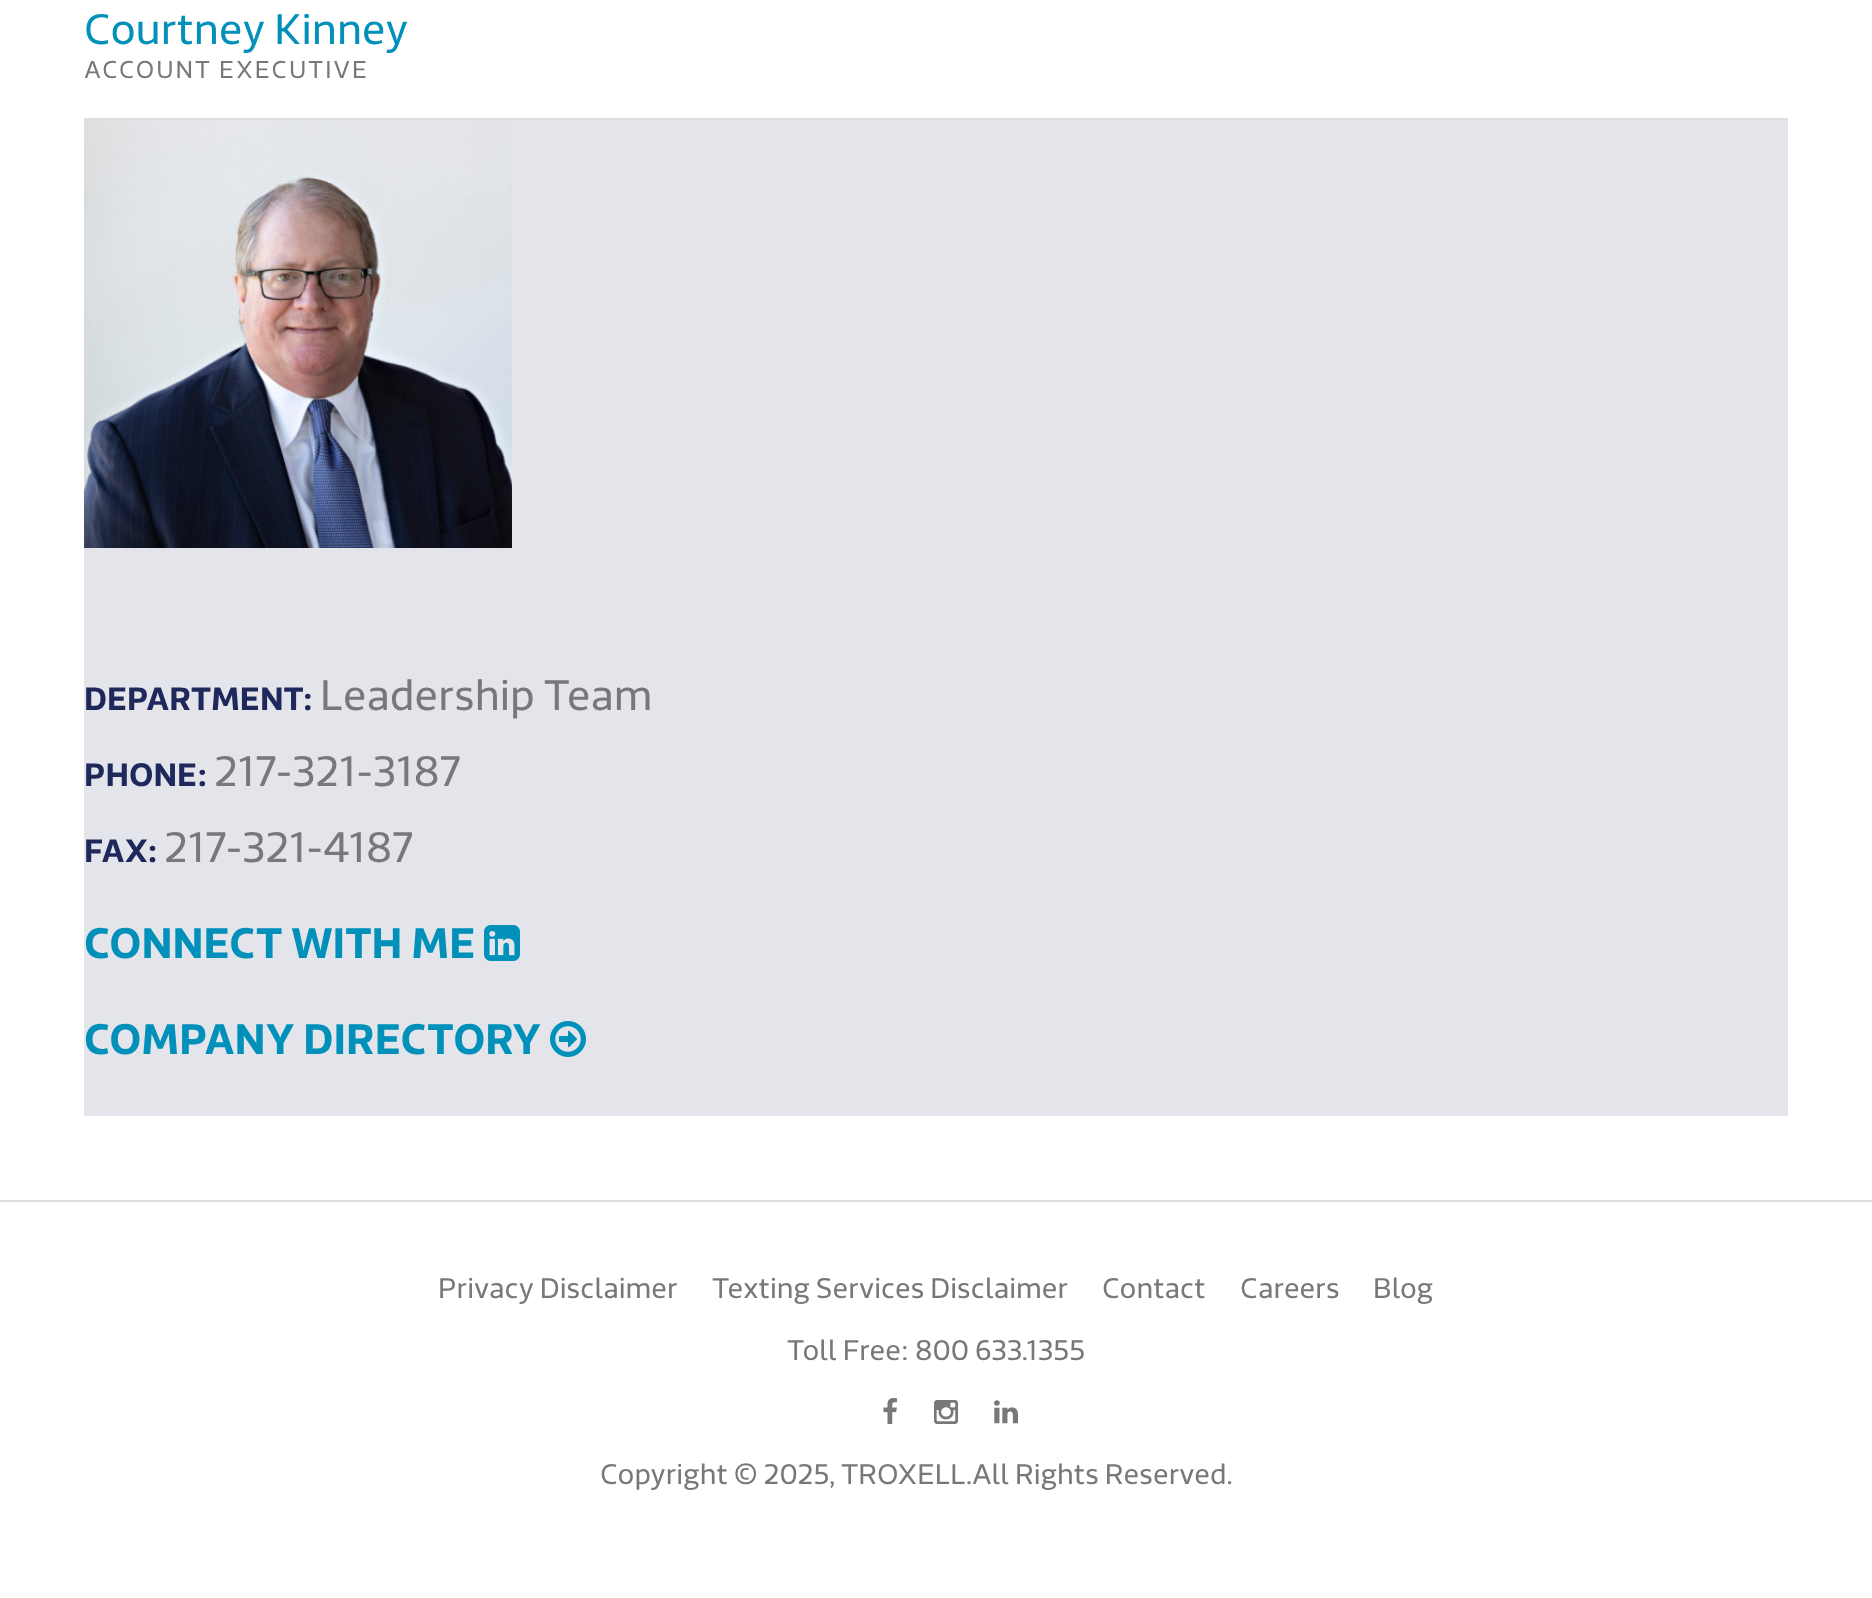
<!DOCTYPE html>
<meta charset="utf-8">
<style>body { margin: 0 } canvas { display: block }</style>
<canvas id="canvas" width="1872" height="1598"></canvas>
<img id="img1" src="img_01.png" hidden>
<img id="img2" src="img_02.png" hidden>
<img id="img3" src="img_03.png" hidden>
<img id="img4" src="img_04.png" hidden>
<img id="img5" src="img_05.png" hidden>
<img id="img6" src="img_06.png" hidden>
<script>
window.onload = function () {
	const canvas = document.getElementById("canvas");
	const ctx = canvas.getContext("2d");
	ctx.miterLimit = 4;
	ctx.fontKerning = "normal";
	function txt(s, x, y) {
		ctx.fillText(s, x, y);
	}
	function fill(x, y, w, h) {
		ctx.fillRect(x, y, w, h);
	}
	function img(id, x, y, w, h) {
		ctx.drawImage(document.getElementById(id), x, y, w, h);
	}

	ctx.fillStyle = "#FFFFFF";
	fill(0, 0, 1872, 1598);
	ctx.fillStyle = "#DFDEDF";
	fill(0, 1200, 1872, 2);
	ctx.fillStyle = "#E4E5EB";
	fill(84, 120, 1704, 996);
	ctx.fillStyle = "#DFDEDF";
	fill(84, 118, 1704, 2);
	img("img1", 84, 120, 428, 428);
	img("img2", 484, 925, 36, 36);
	img("img3", 550, 1021, 36, 36);
	img("img4", 883, 1398, 14, 26);
	img("img5", 934, 1400, 24, 24);
	img("img6", 994, 1400, 24, 24);
	ctx.font = "42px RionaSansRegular";
	ctx.fillStyle = "#0090B9";
	txt("Courtney Kinney", 84, 44);
	ctx.letterSpacing = "2px";
	ctx.font = "24px RionaSansRegular";
	ctx.fillStyle = "#78777A";
	txt("ACCOUNT EXECUTIVE", 84, 78);
	ctx.letterSpacing = "0px";
	ctx.font = "32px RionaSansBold";
	ctx.fillStyle = "#1E285B";
	txt("DEPARTMENT:", 84, 710);
	ctx.font = "42px RionaSansRegular";
	ctx.fillStyle = "#78777A";
	txt("Leadership Team", 320, 710);
	ctx.font = "32px RionaSansBold";
	ctx.fillStyle = "#1E285B";
	txt("PHONE:", 84, 786);
	ctx.font = "42px RionaSansRegular";
	ctx.fillStyle = "#78777A";
	txt("217-321-3187", 214, 786);
	ctx.font = "32px RionaSansBold";
	ctx.fillStyle = "#1E285B";
	txt("FAX:", 84, 862);
	ctx.font = "42px RionaSansRegular";
	ctx.fillStyle = "#78777A";
	txt("217-321-4187", 164, 862);
	ctx.font = "42px RionaSansBold";
	ctx.fillStyle = "#0090B9";
	txt("CONNECT WITH ME", 84, 958);
	txt("COMPANY DIRECTORY", 84, 1054);
	ctx.font = "28px RionaSansRegular";
	ctx.fillStyle = "#78777A";
	txt("Privacy Disclaimer", 438, 1298);
	txt("Texting Services Disclaimer", 712, 1298);
	txt("Contact", 1102, 1298);
	txt("Careers", 1240, 1298);
	txt("Blog", 1373, 1298);
	txt("Toll Free: 800 633.1355", 787, 1360);
	txt("Copyright © 2025, TROXELL.All Rights Reserved.", 600, 1484);
};
</script>
